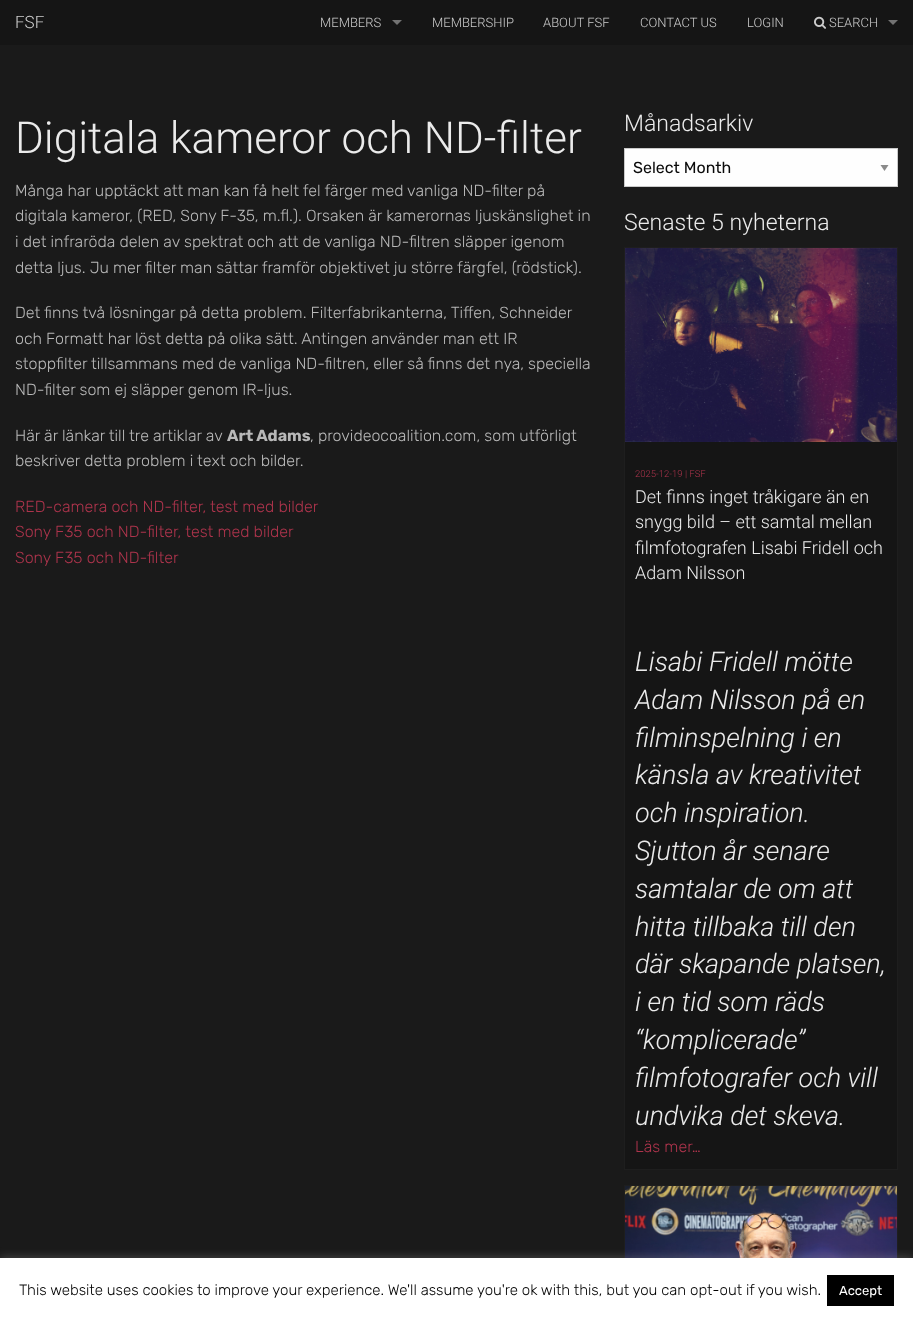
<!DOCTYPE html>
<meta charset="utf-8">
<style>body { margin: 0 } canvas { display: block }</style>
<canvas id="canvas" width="913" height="1318"></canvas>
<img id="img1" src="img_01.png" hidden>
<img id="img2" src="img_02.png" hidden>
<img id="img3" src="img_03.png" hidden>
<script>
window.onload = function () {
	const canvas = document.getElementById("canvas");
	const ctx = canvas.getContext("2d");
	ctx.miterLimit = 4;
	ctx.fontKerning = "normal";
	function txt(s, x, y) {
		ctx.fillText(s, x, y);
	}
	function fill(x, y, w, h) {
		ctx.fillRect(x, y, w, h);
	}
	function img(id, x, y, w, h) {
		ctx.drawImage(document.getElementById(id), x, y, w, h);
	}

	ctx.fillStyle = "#1A1A1A";
	fill(0, 0, 913, 1318);
	ctx.fillStyle = "#151515";
	fill(0, 0, 305, 45);
	fill(305, 0, 608, 45);
	ctx.fillStyle = "#737373";
	ctx.beginPath();
	ctx.moveTo(392, 20);
	ctx.lineTo(402, 20);
	ctx.lineTo(397, 25);
	ctx.closePath();
	ctx.fill();
	img("img1", 814, 16, 12, 13);
	ctx.beginPath();
	ctx.moveTo(888, 20);
	ctx.lineTo(898, 20);
	ctx.lineTo(893, 25);
	ctx.closePath();
	ctx.fill();
	ctx.fillStyle = "#FEFEFE";
	fill(625, 149, 272, 37);
	ctx.fillStyle = "#8A8A8A";
	ctx.beginPath();
	ctx.moveTo(880.5, 165);
	ctx.lineTo(888.5, 165);
	ctx.lineTo(884.5, 171);
	ctx.closePath();
	ctx.fill();
	ctx.strokeStyle = "#CACACA";
	ctx.strokeRect(624.5, 148.5, 273, 38);
	ctx.fillStyle = "#151515";
	fill(625, 442, 272, 727);
	ctx.strokeStyle = "#1E1E1E";
	ctx.strokeRect(624.5, 247.5, 273, 922);
	img("img2", 625, 248, 272, 194);
	ctx.strokeRect(624.5, 1185.5, 273, 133);
	img("img3", 625, 1186, 272, 72);
	ctx.fillStyle = "rgba(172, 171, 171, 0.3)";
	ctx.filter = "blur(5px)";
	ctx.beginPath();
	ctx.rect(0, 1257, 913, 60);
	ctx.fill();
	ctx.filter = "none";
	ctx.fillStyle = "#FFFFFF";
	fill(0, 1258, 913, 60);
	ctx.fillStyle = "#000000";
	fill(827, 1275, 67, 31);
	ctx.font = "300 17px Roboto";
	ctx.fillStyle = "#CCCCCC";
	txt("FSF", 15, 28);
	ctx.font = "300 13px Roboto";
	txt("MEMBERS", 320, 27);
	txt("MEMBERSHIP", 432, 27);
	txt("ABOUT FSF", 543, 27);
	txt("CONTACT US", 640, 27);
	txt("LOGIN", 747, 27);
	txt("SEARCH", 829, 27);
	ctx.font = "300 44px Roboto";
	ctx.fillStyle = "#EBEBEB";
	txt("Digitala kameror och ND-filter", 15, 153);
	ctx.font = "300 16px Rubik";
	ctx.fillStyle = "#B8B8B8";
	txt("Många har upptäckt att man kan få helt fel färger med vanliga ND-filter på", 15, 196);
	txt("digitala kameror, (RED, Sony F-35, m.fl.). Orsaken är kamerornas ljuskänslighet in", 15, 221);
	txt("i det infraröda delen av spektrat och att de vanliga ND-filtren släpper igenom", 15, 247);
	txt("detta ljus. Ju mer filter man sättar framför objektivet ju större färgfel, (rödstick).", 15, 273);
	txt("Det finns två lösningar på detta problem. Filterfabrikanterna, Tiffen, Schneider", 15, 318);
	txt("och Formatt har löst detta på olika sätt. Antingen använder man ett IR", 15, 344);
	txt("stoppfilter tillsammans med de vanliga ND-filtren, eller så finns det nya, speciella", 15, 369);
	txt("ND-filter som ej släpper genom IR-ljus.", 15, 395);
	txt("Här är länkar till tre artiklar av", 15, 441);
	ctx.font = "bold 16px Rubik";
	txt("Art Adams", 227, 441);
	ctx.font = "300 16px Rubik";
	txt(", provideocoalition.com, som utförligt", 310, 441);
	txt("beskriver detta problem i text och bilder.", 15, 466);
	ctx.fillStyle = "#AD344C";
	txt("RED-camera och ND-filter, test med bilder", 15, 512);
	txt("Sony F35 och ND-filter, test med bilder", 15, 537);
	txt("Sony F35 och ND-filter", 15, 563);
	ctx.font = "300 23px Roboto";
	ctx.fillStyle = "#EBEBEB";
	txt("Månadsarkiv", 624, 131);
	ctx.font = "16px Rubik";
	ctx.fillStyle = "#0A0A0A";
	txt("Select Month", 633, 173);
	ctx.font = "300 23px Roboto";
	ctx.fillStyle = "#EBEBEB";
	txt("Senaste 5 nyheterna", 624, 230);
	ctx.font = "300 9.5px Roboto";
	ctx.fillStyle = "#AD344C";
	txt("2025-12-19 | FSF", 635, 477);
	ctx.font = "300 18px Roboto";
	ctx.fillStyle = "#EBEBEB";
	txt("Det finns inget tråkigare än en", 635, 503);
	txt("snygg bild – ett samtal mellan", 635, 528);
	txt("filmfotografen Lisabi Fridell och", 635, 554);
	txt("Adam Nilsson", 635, 579);
	ctx.font = "italic 300 27px Roboto";
	txt("Lisabi Fridell mötte", 635, 671);
	txt("Adam Nilsson på en", 635, 709);
	txt("filminspelning i en", 635, 747);
	txt("känsla av kreativitet", 635, 784);
	txt("och inspiration.", 635, 822);
	txt("Sjutton år senare", 635, 860);
	txt("samtalar de om att", 635, 898);
	txt("hitta tillbaka till den", 635, 936);
	txt("där skapande platsen,", 635, 973);
	txt("i en tid som räds", 635, 1011);
	txt("“komplicerade”", 635, 1049);
	txt("filmfotografer och vill", 635, 1087);
	txt("undvika det skeva.", 635, 1125);
	ctx.font = "300 16px Rubik";
	ctx.fillStyle = "#AD344C";
	txt("Läs mer…", 635, 1152);
	ctx.font = "300 15px Rubik";
	ctx.fillStyle = "#000000";
	txt("This website uses cookies to improve your experience. We'll assume you're ok with this, but you can opt-out if you wish.", 19, 1295);
	ctx.font = "13px Rubik";
	ctx.fillStyle = "#FFFFFF";
	txt("Accept", 839, 1295);
};
</script>
